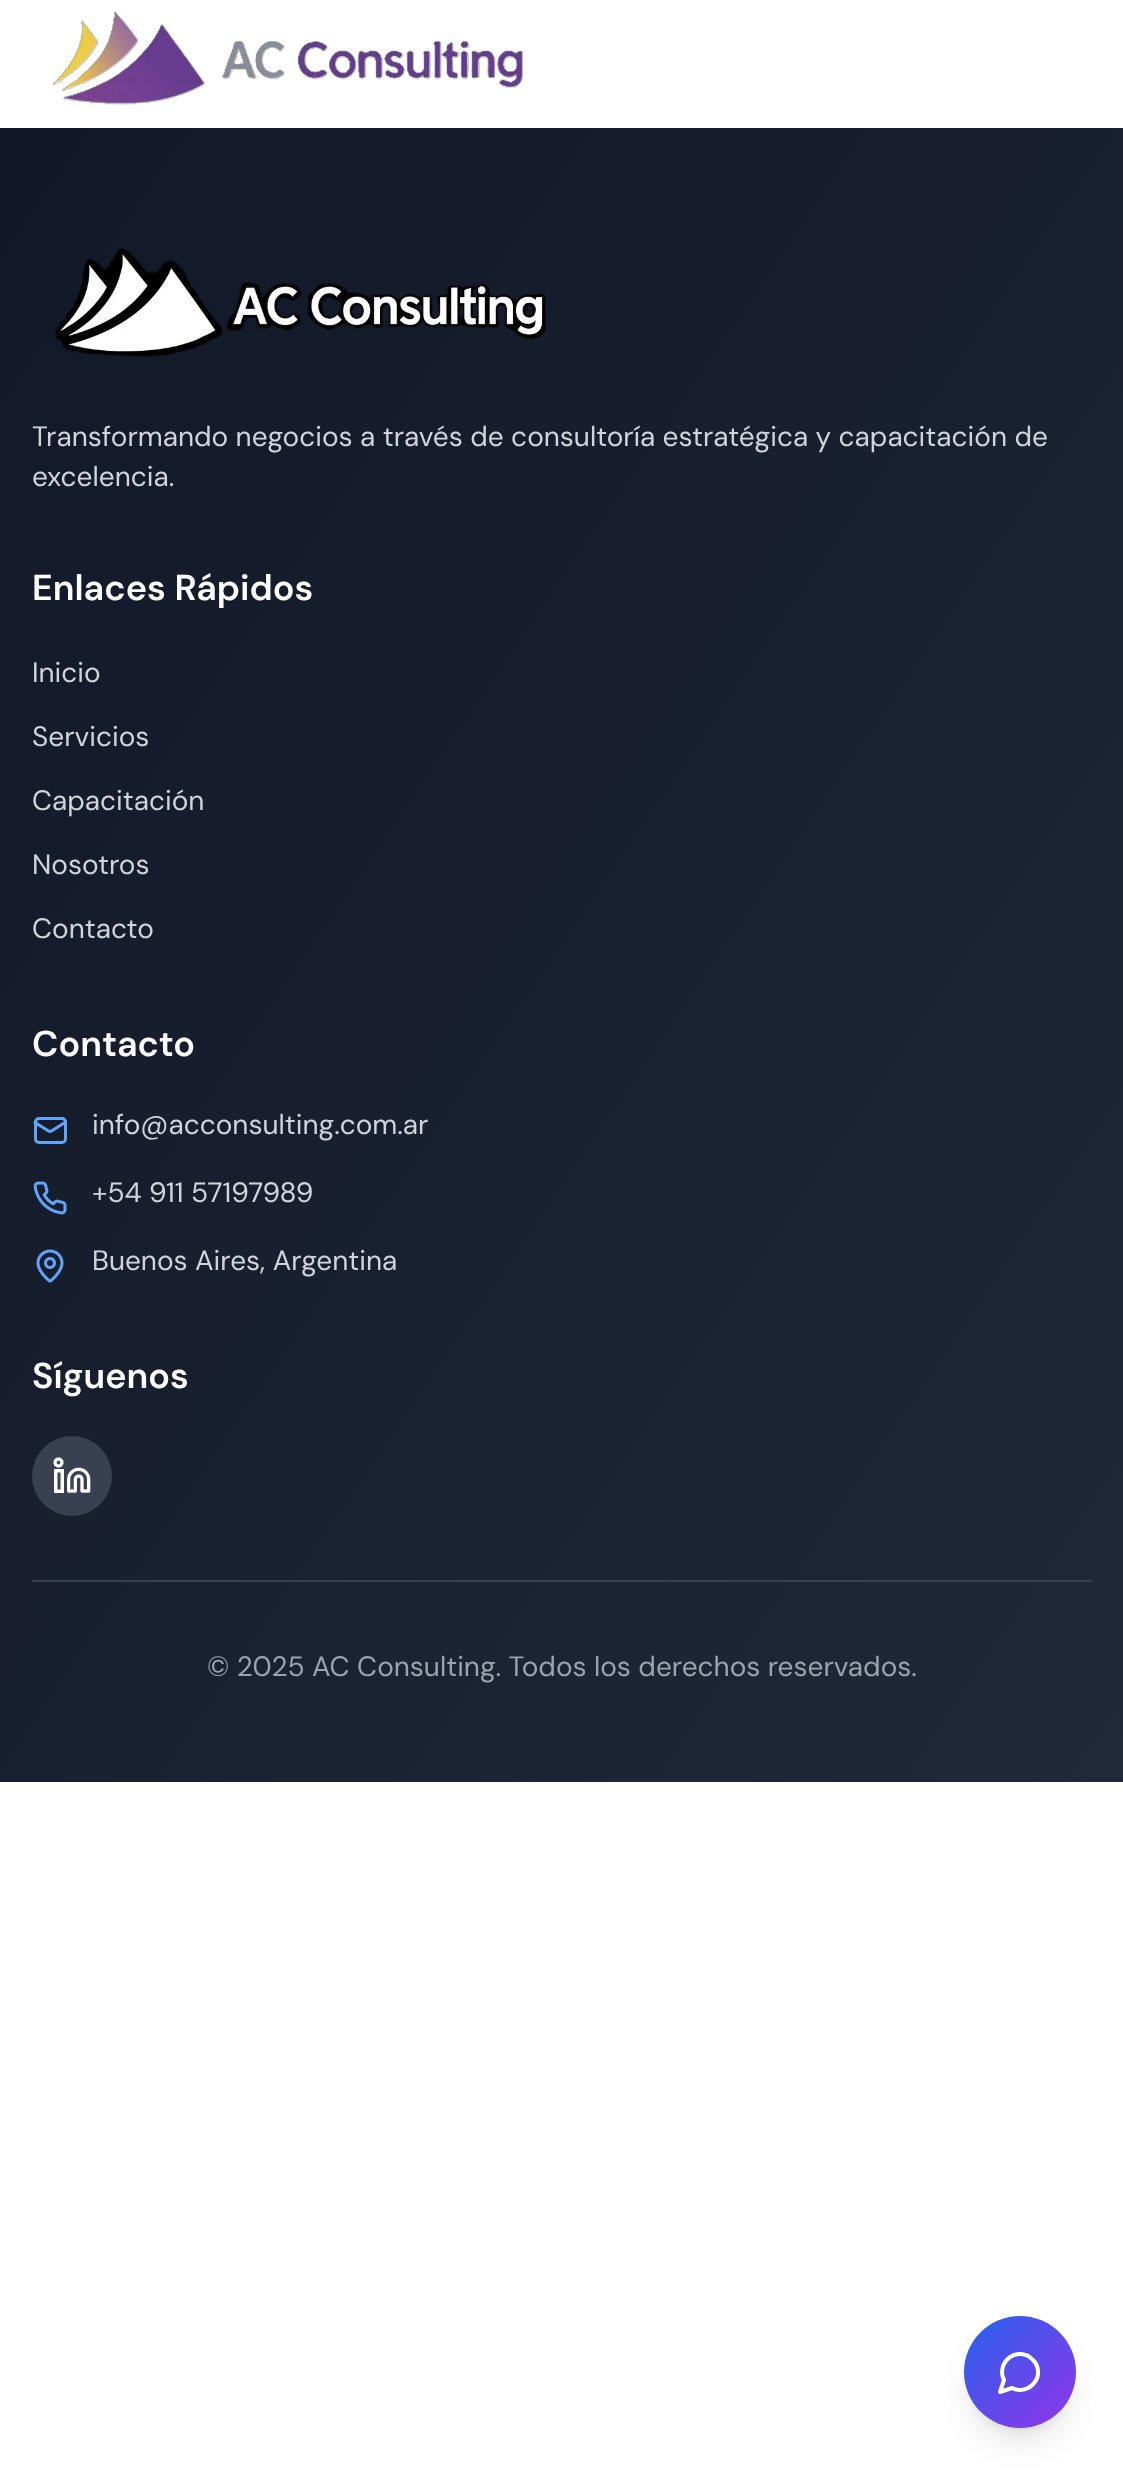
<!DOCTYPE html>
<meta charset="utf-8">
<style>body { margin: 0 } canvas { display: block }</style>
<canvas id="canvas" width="1123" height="2475"></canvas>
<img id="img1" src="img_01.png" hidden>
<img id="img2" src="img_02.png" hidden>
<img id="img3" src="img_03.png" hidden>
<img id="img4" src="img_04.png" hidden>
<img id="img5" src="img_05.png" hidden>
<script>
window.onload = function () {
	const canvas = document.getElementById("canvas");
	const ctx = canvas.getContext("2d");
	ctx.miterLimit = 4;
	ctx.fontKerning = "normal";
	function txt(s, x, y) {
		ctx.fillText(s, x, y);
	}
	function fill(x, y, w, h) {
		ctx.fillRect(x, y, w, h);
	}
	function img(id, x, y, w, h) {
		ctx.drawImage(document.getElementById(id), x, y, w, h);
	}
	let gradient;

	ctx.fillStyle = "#FFFFFF";
	fill(0, 0, 1123, 2475);
	img("img1", 52, 11, 471, 94);
	gradient = ctx.createLinearGradient(-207, 432, 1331, 1478);
	gradient.addColorStop(0, "#111827");
	gradient.addColorStop(1, "#1F2937");
	ctx.fillStyle = gradient;
	fill(0, 128, 1123, 1654);
	img("img2", 55, 248, 491, 109);
	ctx.beginPath();
	ctx.roundRect(35.5, 1118.5, 30, 24, 3.5);
	ctx.strokeStyle = "#60A5FA";
	ctx.lineWidth = 3;
	ctx.stroke();
	ctx.beginPath();
	ctx.moveTo(65, 1122.5);
	ctx.lineTo(51.5, 1131);
	ctx.bezierCurveTo(50.5, 1131.5, 49.5, 1131.5, 48.5, 1131);
	ctx.lineTo(35, 1122.5);
	ctx.lineCap = "round";
	ctx.lineJoin = "round";
	ctx.stroke();
	img("img3", 33, 1181, 34, 34);
	img("img4", 36, 1249, 28, 34);
	ctx.fillStyle = "#374151";
	ctx.beginPath();
	ctx.arc(72, 1476, 40, 0, Math.PI * 2);
	ctx.fill();
	img("img5", 53, 1457, 38, 36);
	fill(32, 1580, 1060, 2);
	ctx.fillStyle = "rgba(0, 0, 0, 0.1)";
	ctx.filter = "blur(6px)";
	ctx.beginPath();
	ctx.roundRect(972, 2332, 96, 96, 48);
	ctx.fill();
	ctx.filter = "none";
	ctx.filter = "blur(15px)";
	ctx.beginPath();
	ctx.roundRect(970, 2342, 100, 100, 50);
	ctx.fill();
	ctx.filter = "none";
	gradient = ctx.createLinearGradient(964, 2316, 1076, 2428);
	gradient.addColorStop(0, "#2563EB");
	gradient.addColorStop(1, "#9333EA");
	ctx.fillStyle = gradient;
	ctx.beginPath();
	ctx.arc(1020, 2372, 56, 0, Math.PI * 2);
	ctx.fill();
	ctx.beginPath();
	ctx.moveTo(1012, 2388);
	ctx.bezierCurveTo(1019.5, 2392, 1029.5, 2389.5, 1034.5, 2382.5);
	ctx.bezierCurveTo(1040, 2375.5, 1039, 2365.5, 1032.5, 2359.5);
	ctx.bezierCurveTo(1026.5, 2353, 1016.5, 2352, 1009.5, 2357.5);
	ctx.bezierCurveTo(1002.5, 2362.5, 1000, 2372.5, 1004, 2380);
	ctx.lineTo(1000, 2392);
	ctx.closePath();
	ctx.strokeStyle = "#FFFFFF";
	ctx.lineWidth = 4;
	ctx.stroke();
	ctx.font = "28px DM Sans";
	ctx.fillStyle = "#D1D5DB";
	txt("Transformando negocios a través de consultoría estratégica y capacitación de", 32, 446);
	txt("excelencia.", 32, 486);
	ctx.font = "600 36px DM Sans";
	ctx.fillStyle = "#FFFFFF";
	txt("Enlaces Rápidos", 32, 600);
	ctx.font = "28px DM Sans";
	ctx.fillStyle = "#D1D5DB";
	txt("Inicio", 32, 682);
	txt("Servicios", 32, 746);
	txt("Capacitación", 32, 810);
	txt("Nosotros", 32, 874);
	txt("Contacto", 32, 938);
	ctx.font = "600 36px DM Sans";
	ctx.fillStyle = "#FFFFFF";
	txt("Contacto", 32, 1056);
	ctx.font = "28px DM Sans";
	ctx.fillStyle = "#D1D5DB";
	txt("info@acconsulting.com.ar", 92, 1134);
	txt("+54 911 57197989", 92, 1202);
	txt("Buenos Aires, Argentina", 92, 1270);
	ctx.font = "600 36px DM Sans";
	ctx.fillStyle = "#FFFFFF";
	txt("Síguenos", 32, 1388);
	ctx.font = "28px DM Sans";
	ctx.fillStyle = "#9CA3AF";
	txt("© 2025 AC Consulting. Todos los derechos reservados.", 207, 1676);
};
</script>
